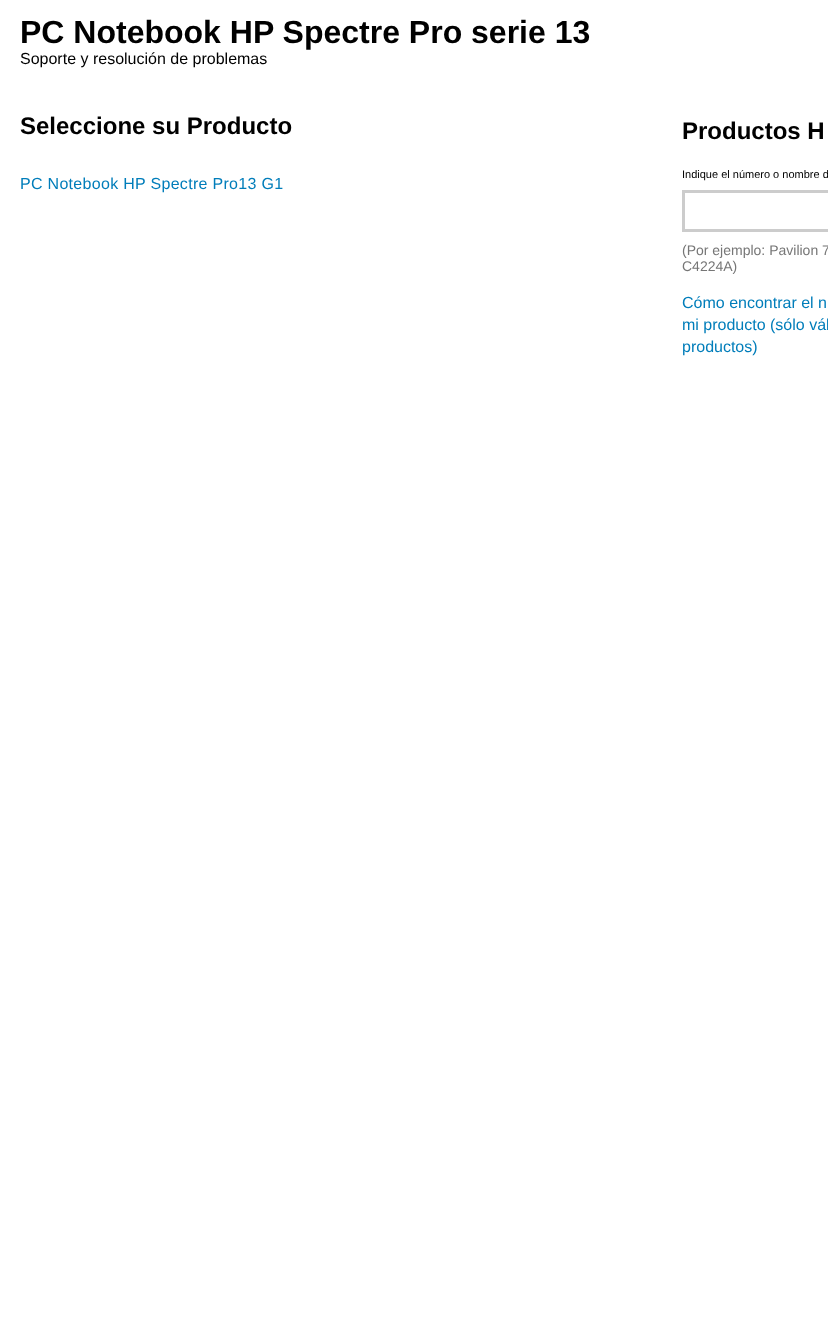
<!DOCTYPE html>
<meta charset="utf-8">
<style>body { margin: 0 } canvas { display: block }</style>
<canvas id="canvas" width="828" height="1341"></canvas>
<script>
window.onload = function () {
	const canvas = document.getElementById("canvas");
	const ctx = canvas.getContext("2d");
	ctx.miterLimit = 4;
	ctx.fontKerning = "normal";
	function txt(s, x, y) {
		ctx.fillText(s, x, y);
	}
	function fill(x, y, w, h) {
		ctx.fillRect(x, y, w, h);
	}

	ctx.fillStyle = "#FFFFFF";
	fill(0, 0, 828, 1341);
	ctx.strokeStyle = "#CCCCCC";
	ctx.lineWidth = 3;
	ctx.strokeRect(683.5, 191.5, 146, 39);
	ctx.font = "bold 32px Liberation Sans";
	ctx.fillStyle = "#000000";
	txt("PC Notebook HP Spectre Pro serie 13", 20, 43);
	ctx.font = "16px Liberation Sans";
	txt("Soporte y resolución de problemas", 20, 64);
	ctx.font = "bold 24px Liberation Sans";
	txt("Seleccione su Producto", 20, 134);
	ctx.letterSpacing = "0.3px";
	ctx.font = "16px Liberation Sans";
	ctx.fillStyle = "#007DBA";
	txt("PC Notebook HP Spectre Pro13 G1", 20, 189);
	ctx.letterSpacing = "0px";
	ctx.font = "bold 24px Liberation Sans";
	ctx.fillStyle = "#000000";
	txt("Productos H", 682, 139);
	ctx.font = "11px Liberation Sans";
	txt("Indique el número o nombre d", 682, 178);
	ctx.font = "14px Liberation Sans";
	ctx.fillStyle = "#767676";
	txt("(Por ejemplo: Pavilion 7", 682, 255);
	txt("C4224A)", 682, 271);
	ctx.font = "16px Liberation Sans";
	ctx.fillStyle = "#007DBA";
	txt("Cómo encontrar el n", 682, 308);
	txt("mi producto (sólo vál", 682, 330);
	txt("productos)", 682, 352);
};
</script>
